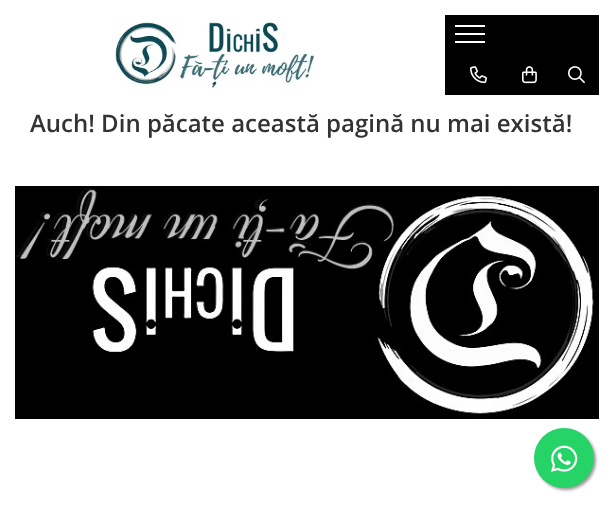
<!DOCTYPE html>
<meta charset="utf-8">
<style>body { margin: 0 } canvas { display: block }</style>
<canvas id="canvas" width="614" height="508"></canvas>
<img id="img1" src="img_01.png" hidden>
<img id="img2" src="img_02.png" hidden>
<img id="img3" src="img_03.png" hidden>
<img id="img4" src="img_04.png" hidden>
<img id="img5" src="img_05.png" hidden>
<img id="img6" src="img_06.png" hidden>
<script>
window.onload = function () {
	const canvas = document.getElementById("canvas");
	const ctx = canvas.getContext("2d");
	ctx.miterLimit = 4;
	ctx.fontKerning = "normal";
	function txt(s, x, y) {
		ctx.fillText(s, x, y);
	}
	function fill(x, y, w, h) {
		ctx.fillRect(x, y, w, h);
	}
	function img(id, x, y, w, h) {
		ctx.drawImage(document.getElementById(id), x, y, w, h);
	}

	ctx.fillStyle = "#FFFFFF";
	fill(0, 0, 614, 508);
	img("img1", 115, 22, 200, 66);
	ctx.fillStyle = "#000000";
	fill(445, 15, 154, 80);
	ctx.fillStyle = "#FFFFFF";
	fill(455, 33, 30, 2);
	fill(455, 25, 30, 2);
	fill(455, 41, 30, 2);
	img("img2", 470, 66, 17, 18);
	img("img3", 522, 66, 15, 18);
	img("img4", 568, 66, 17, 18);
	img("img5", 15, 186, 584, 233);
	ctx.fillStyle = "#999999";
	ctx.filter = "blur(1.5px)";
	ctx.beginPath();
	ctx.roundRect(536, 430, 60, 60, 30);
	ctx.fill();
	ctx.filter = "none";
	ctx.fillStyle = "#25D366";
	ctx.beginPath();
	ctx.arc(564, 458, 30, 0, Math.PI * 2);
	ctx.fill();
	img("img6", 551, 445, 27, 27);
	ctx.font = "600 24px Open Sans";
	ctx.fillStyle = "#333333";
	txt("Auch! Din păcate această pagină nu mai există!", 30, 132);
};
</script>
